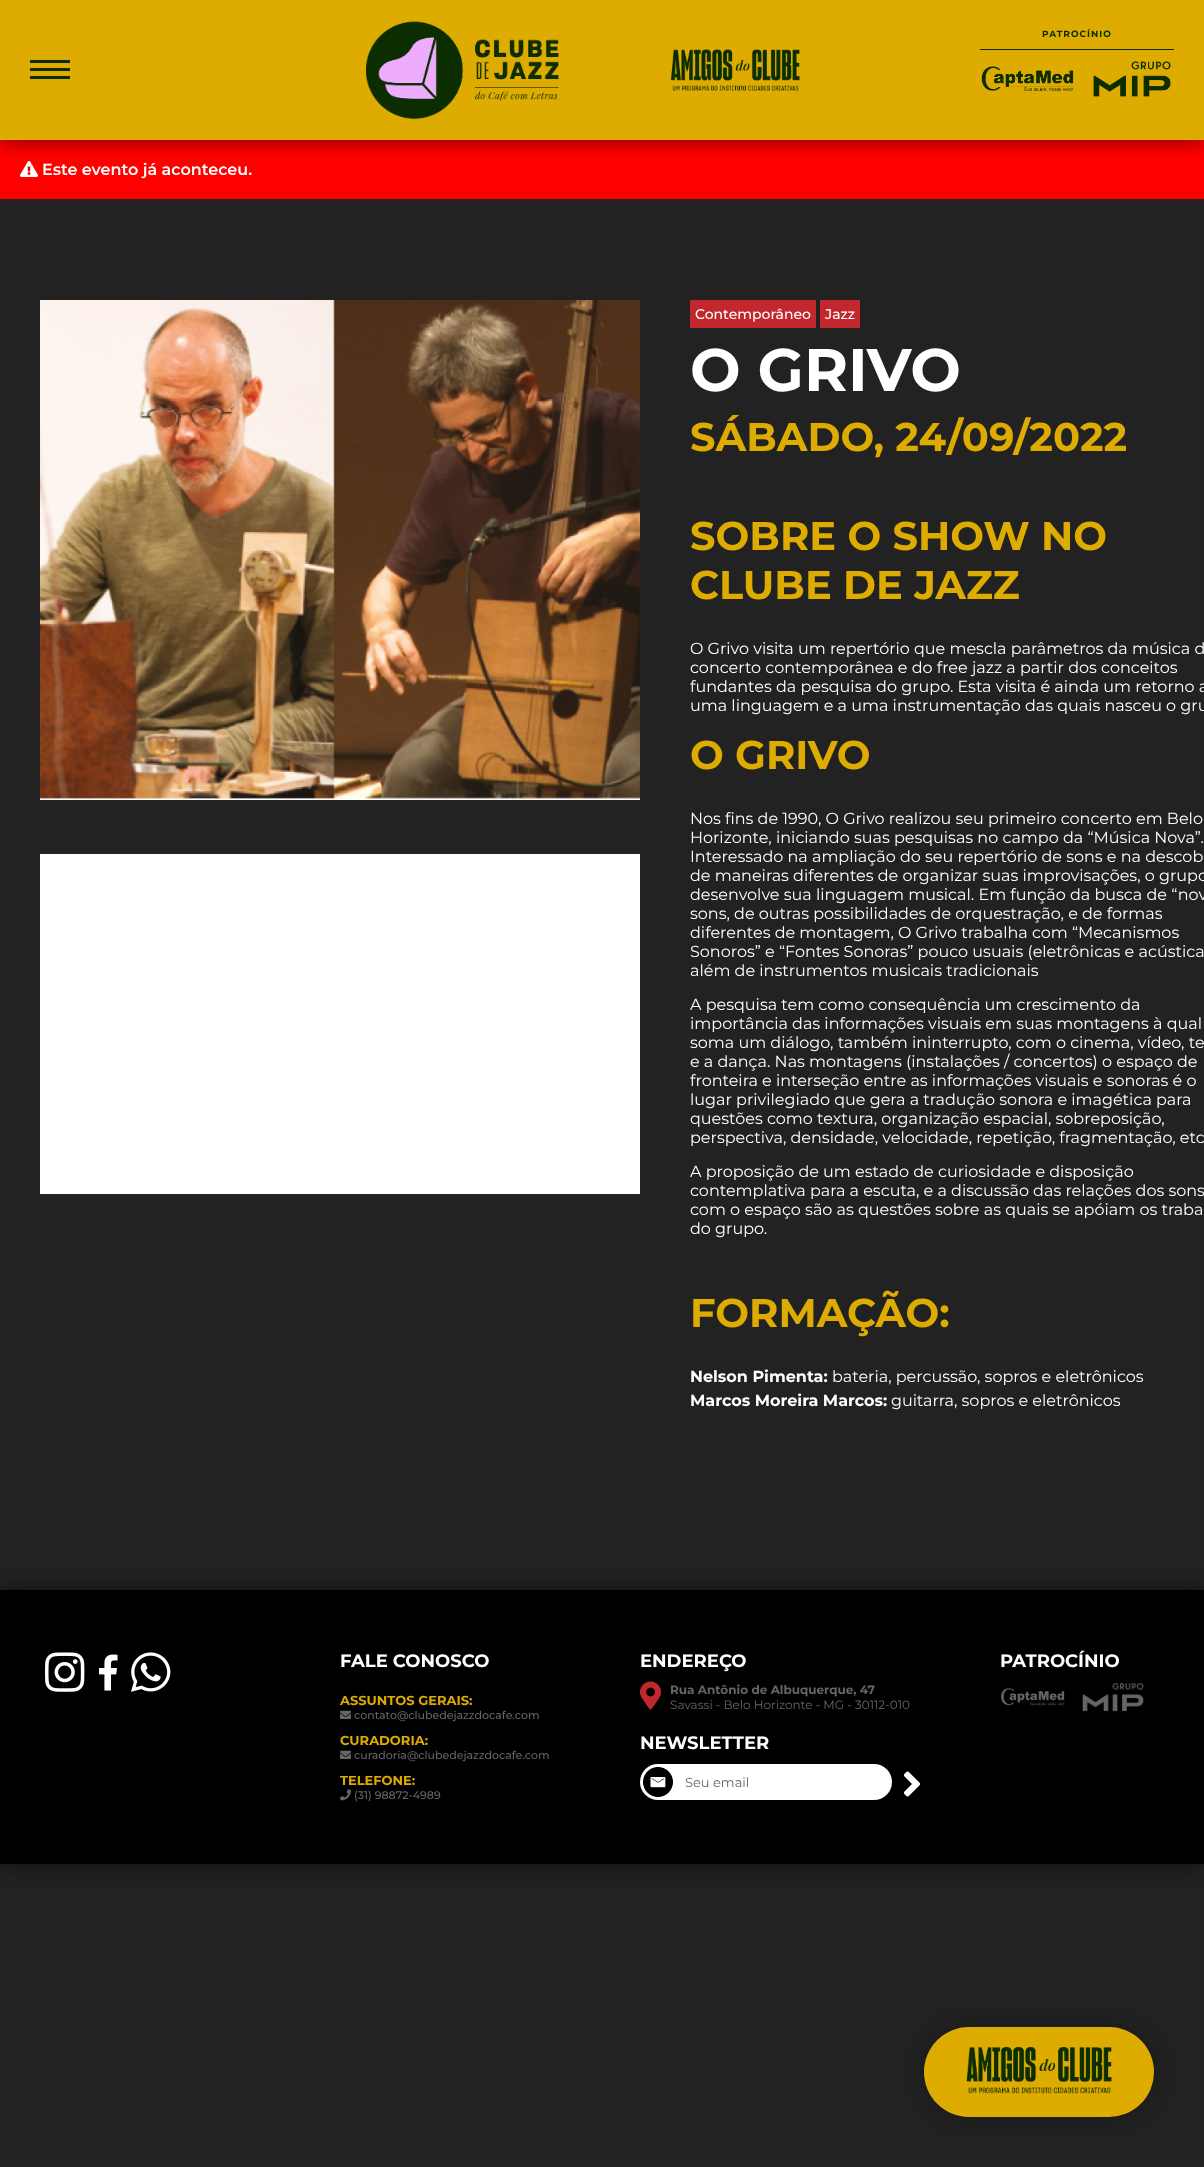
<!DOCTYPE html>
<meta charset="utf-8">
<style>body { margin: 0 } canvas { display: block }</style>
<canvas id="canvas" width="1204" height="2167"></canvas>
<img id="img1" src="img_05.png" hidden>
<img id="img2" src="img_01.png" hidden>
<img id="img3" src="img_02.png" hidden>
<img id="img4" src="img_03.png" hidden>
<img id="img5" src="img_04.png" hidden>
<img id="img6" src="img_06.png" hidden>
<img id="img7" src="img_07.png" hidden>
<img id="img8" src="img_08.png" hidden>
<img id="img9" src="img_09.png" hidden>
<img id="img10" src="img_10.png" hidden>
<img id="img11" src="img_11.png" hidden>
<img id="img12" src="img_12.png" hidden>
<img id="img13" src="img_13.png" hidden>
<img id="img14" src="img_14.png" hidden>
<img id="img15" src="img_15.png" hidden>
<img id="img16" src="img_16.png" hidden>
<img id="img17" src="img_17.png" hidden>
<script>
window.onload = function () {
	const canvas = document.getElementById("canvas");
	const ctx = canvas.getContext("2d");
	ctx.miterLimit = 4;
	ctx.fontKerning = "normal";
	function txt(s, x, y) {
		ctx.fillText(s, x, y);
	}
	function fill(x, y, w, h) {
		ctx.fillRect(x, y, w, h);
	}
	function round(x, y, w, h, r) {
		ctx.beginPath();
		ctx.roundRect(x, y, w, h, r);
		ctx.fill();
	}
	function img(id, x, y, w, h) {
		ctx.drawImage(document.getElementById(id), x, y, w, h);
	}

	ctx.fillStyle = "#222222";
	fill(0, 0, 1204, 2167);
	ctx.fillStyle = "#FF0000";
	fill(0, 140, 1204, 59);
	img("img1", 20, 161, 18, 16);
	ctx.fillStyle = "rgba(0, 0, 0, 0.6)";
	ctx.filter = "blur(10px)";
	ctx.beginPath();
	ctx.rect(0, 0, 1204, 140);
	ctx.fill();
	ctx.filter = "none";
	ctx.fillStyle = "#DEAC00";
	fill(0, 0, 1204, 140);
	img("img2", 366, 21, 193, 99);
	ctx.fillStyle = "#0B2D00";
	fill(980, 49, 194, 1);
	img("img3", 981, 66, 93, 26);
	img("img4", 1093, 61, 78, 36);
	img("img5", 670, 49, 130, 42);
	img("img6", 40, 300, 600, 500);
	ctx.fillStyle = "#FFFFFF";
	fill(40, 854, 600, 340);
	ctx.fillStyle = "#C1272D";
	fill(690, 300, 126, 28);
	fill(820, 300, 40, 28);
	ctx.fillStyle = "#0B2D00";
	fill(30, 60, 40, 3);
	fill(30, 68, 40, 3);
	fill(30, 76, 40, 3);
	ctx.fillStyle = "rgba(0, 0, 0, 0.6)";
	ctx.filter = "blur(10px)";
	ctx.beginPath();
	ctx.rect(0, 1590, 1204, 274);
	ctx.fill();
	ctx.filter = "none";
	ctx.fillStyle = "#000000";
	fill(0, 1590, 1204, 274);
	img("img7", 45, 1652, 40, 40);
	img("img8", 99, 1654, 19, 37);
	img("img9", 131, 1652, 40, 40);
	img("img10", 340, 1710, 11, 9);
	img("img10", 340, 1750, 11, 9);
	img("img11", 340, 1789, 11, 12);
	img("img12", 640, 1681, 21, 29);
	ctx.fillStyle = "#FFFFFF";
	round(640, 1764, 252, 36, 18);
	img("img13", 643, 1767, 30, 30);
	img("img14", 904, 1771, 16, 26);
	img("img15", 1000, 1688, 65, 18);
	img("img16", 1082, 1683, 62, 29);
	ctx.fillStyle = "rgba(0, 0, 0, 0.3)";
	ctx.filter = "blur(10px)";
	ctx.beginPath();
	ctx.roundRect(924, 2027, 230, 90, 45);
	ctx.fill();
	ctx.filter = "none";
	ctx.fillStyle = "#DEAC00";
	round(924, 2027, 230, 90, 45);
	img("img17", 966, 2047, 146, 47);
	ctx.letterSpacing = "1px";
	ctx.font = "bold 9px Montserrat";
	ctx.fillStyle = "#0B2D00";
	txt("PATROCÍNIO", 1042, 37);
	ctx.letterSpacing = "0px";
	ctx.font = "600 16px Montserrat";
	ctx.fillStyle = "#FFFFFF";
	txt("Este evento já aconteceu.", 42, 175);
	ctx.font = "500 14px Montserrat";
	txt("Contemporâneo", 695, 319);
	txt("Jazz", 825, 319);
	ctx.font = "bold 60px Montserrat";
	txt("O GRIVO", 690, 391);
	ctx.font = "bold 40px Montserrat";
	ctx.fillStyle = "#DEAC00";
	txt("SÁBADO, 24/09/2022", 690, 451);
	txt("SOBRE O SHOW NO", 690, 550);
	txt("CLUBE DE JAZZ", 690, 599);
	ctx.font = "16px Montserrat";
	ctx.fillStyle = "#FFFFFF";
	txt("O Grivo visita um repertório que mescla parâmetros da música d", 690, 654);
	txt("concerto contemporânea e do free jazz a partir dos conceitos", 690, 673);
	txt("fundantes da pesquisa do grupo. Esta visita é ainda um retorno a", 690, 692);
	txt("uma linguagem e a uma instrumentação das quais nasceu o gru", 690, 711);
	ctx.font = "bold 40px Montserrat";
	ctx.fillStyle = "#DEAC00";
	txt("O GRIVO", 690, 769);
	ctx.font = "16px Montserrat";
	ctx.fillStyle = "#FFFFFF";
	txt("Nos fins de 1990, O Grivo realizou seu primeiro concerto em Belo", 690, 824);
	txt("Horizonte, iniciando suas pesquisas no campo da “Música Nova”.", 690, 843);
	txt("Interessado na ampliação do seu repertório de sons e na descob", 690, 862);
	txt("de maneiras diferentes de organizar suas improvisações, o grupo", 690, 881);
	txt("desenvolve sua linguagem musical. Em função da busca de “nov", 690, 900);
	txt("sons, de outras possibilidades de orquestração, e de formas", 690, 919);
	txt("diferentes de montagem, O Grivo trabalha com “Mecanismos", 690, 938);
	txt("Sonoros” e “Fontes Sonoras” pouco usuais (eletrônicas e acústica", 690, 957);
	txt("além de instrumentos musicais tradicionais", 690, 976);
	txt("A pesquisa tem como consequência um crescimento da", 690, 1010);
	txt("importância das informações visuais em suas montagens à qual", 690, 1029);
	txt("soma um diálogo, também ininterrupto, com o cinema, vídeo, te", 690, 1048);
	txt("e a dança. Nas montagens (instalações / concertos) o espaço de", 690, 1067);
	txt("fronteira e interseção entre as informações visuais e sonoras é o", 690, 1086);
	txt("lugar privilegiado que gera a tradução sonora e imagética para", 690, 1105);
	txt("questões como textura, organização espacial, sobreposição,", 690, 1124);
	txt("perspectiva, densidade, velocidade, repetição, fragmentação, etc", 690, 1143);
	txt("A proposição de um estado de curiosidade e disposição", 690, 1177);
	txt("contemplativa para a escuta, e a discussão das relações dos sons", 690, 1196);
	txt("com o espaço são as questões sobre as quais se apóiam os traba", 690, 1215);
	txt("do grupo.", 690, 1234);
	ctx.font = "bold 40px Montserrat";
	ctx.fillStyle = "#DEAC00";
	txt("FORMAÇÃO:", 690, 1327);
	ctx.font = "bold 16px Montserrat";
	ctx.fillStyle = "#FFFFFF";
	txt("Nelson Pimenta:", 690, 1382);
	ctx.font = "16px Montserrat";
	txt("bateria, percussão, sopros e eletrônicos", 832, 1382);
	ctx.font = "bold 16px Montserrat";
	txt("Marcos Moreira Marcos:", 690, 1406);
	ctx.font = "16px Montserrat";
	txt("guitarra, sopros e eletrônicos", 891, 1406);
	ctx.font = "bold 18px Montserrat";
	txt("FALE CONOSCO", 340, 1667);
	ctx.font = "bold 13px Montserrat";
	ctx.fillStyle = "#DEAC00";
	txt("ASSUNTOS GERAIS:", 340, 1705);
	ctx.font = "500 11px Montserrat";
	ctx.fillStyle = "#666666";
	txt("contato@clubedejazzdocafe.com", 354, 1719);
	ctx.font = "bold 13px Montserrat";
	ctx.fillStyle = "#DEAC00";
	txt("CURADORIA:", 340, 1745);
	ctx.font = "500 11px Montserrat";
	ctx.fillStyle = "#666666";
	txt("curadoria@clubedejazzdocafe.com", 354, 1759);
	ctx.font = "bold 13px Montserrat";
	ctx.fillStyle = "#DEAC00";
	txt("TELEFONE:", 340, 1785);
	ctx.font = "500 11px Montserrat";
	ctx.fillStyle = "#666666";
	txt("(31) 98872-4989", 354, 1799);
	ctx.font = "bold 18px Montserrat";
	ctx.fillStyle = "#FFFFFF";
	txt("ENDEREÇO", 640, 1667);
	ctx.font = "bold 12px Montserrat";
	ctx.fillStyle = "#666666";
	txt("Rua Antônio de Albuquerque, 47", 670, 1694);
	ctx.font = "12px Montserrat";
	txt("Savassi - Belo Horizonte - MG - 30112-010", 670, 1709);
	ctx.font = "bold 18px Montserrat";
	ctx.fillStyle = "#FFFFFF";
	txt("NEWSLETTER", 640, 1749);
	ctx.font = "13px Montserrat";
	ctx.fillStyle = "#666666";
	txt("Seu email", 685, 1787);
	ctx.font = "bold 18px Montserrat";
	ctx.fillStyle = "#FFFFFF";
	txt("PATROCÍNIO", 1000, 1667);
};
</script>
